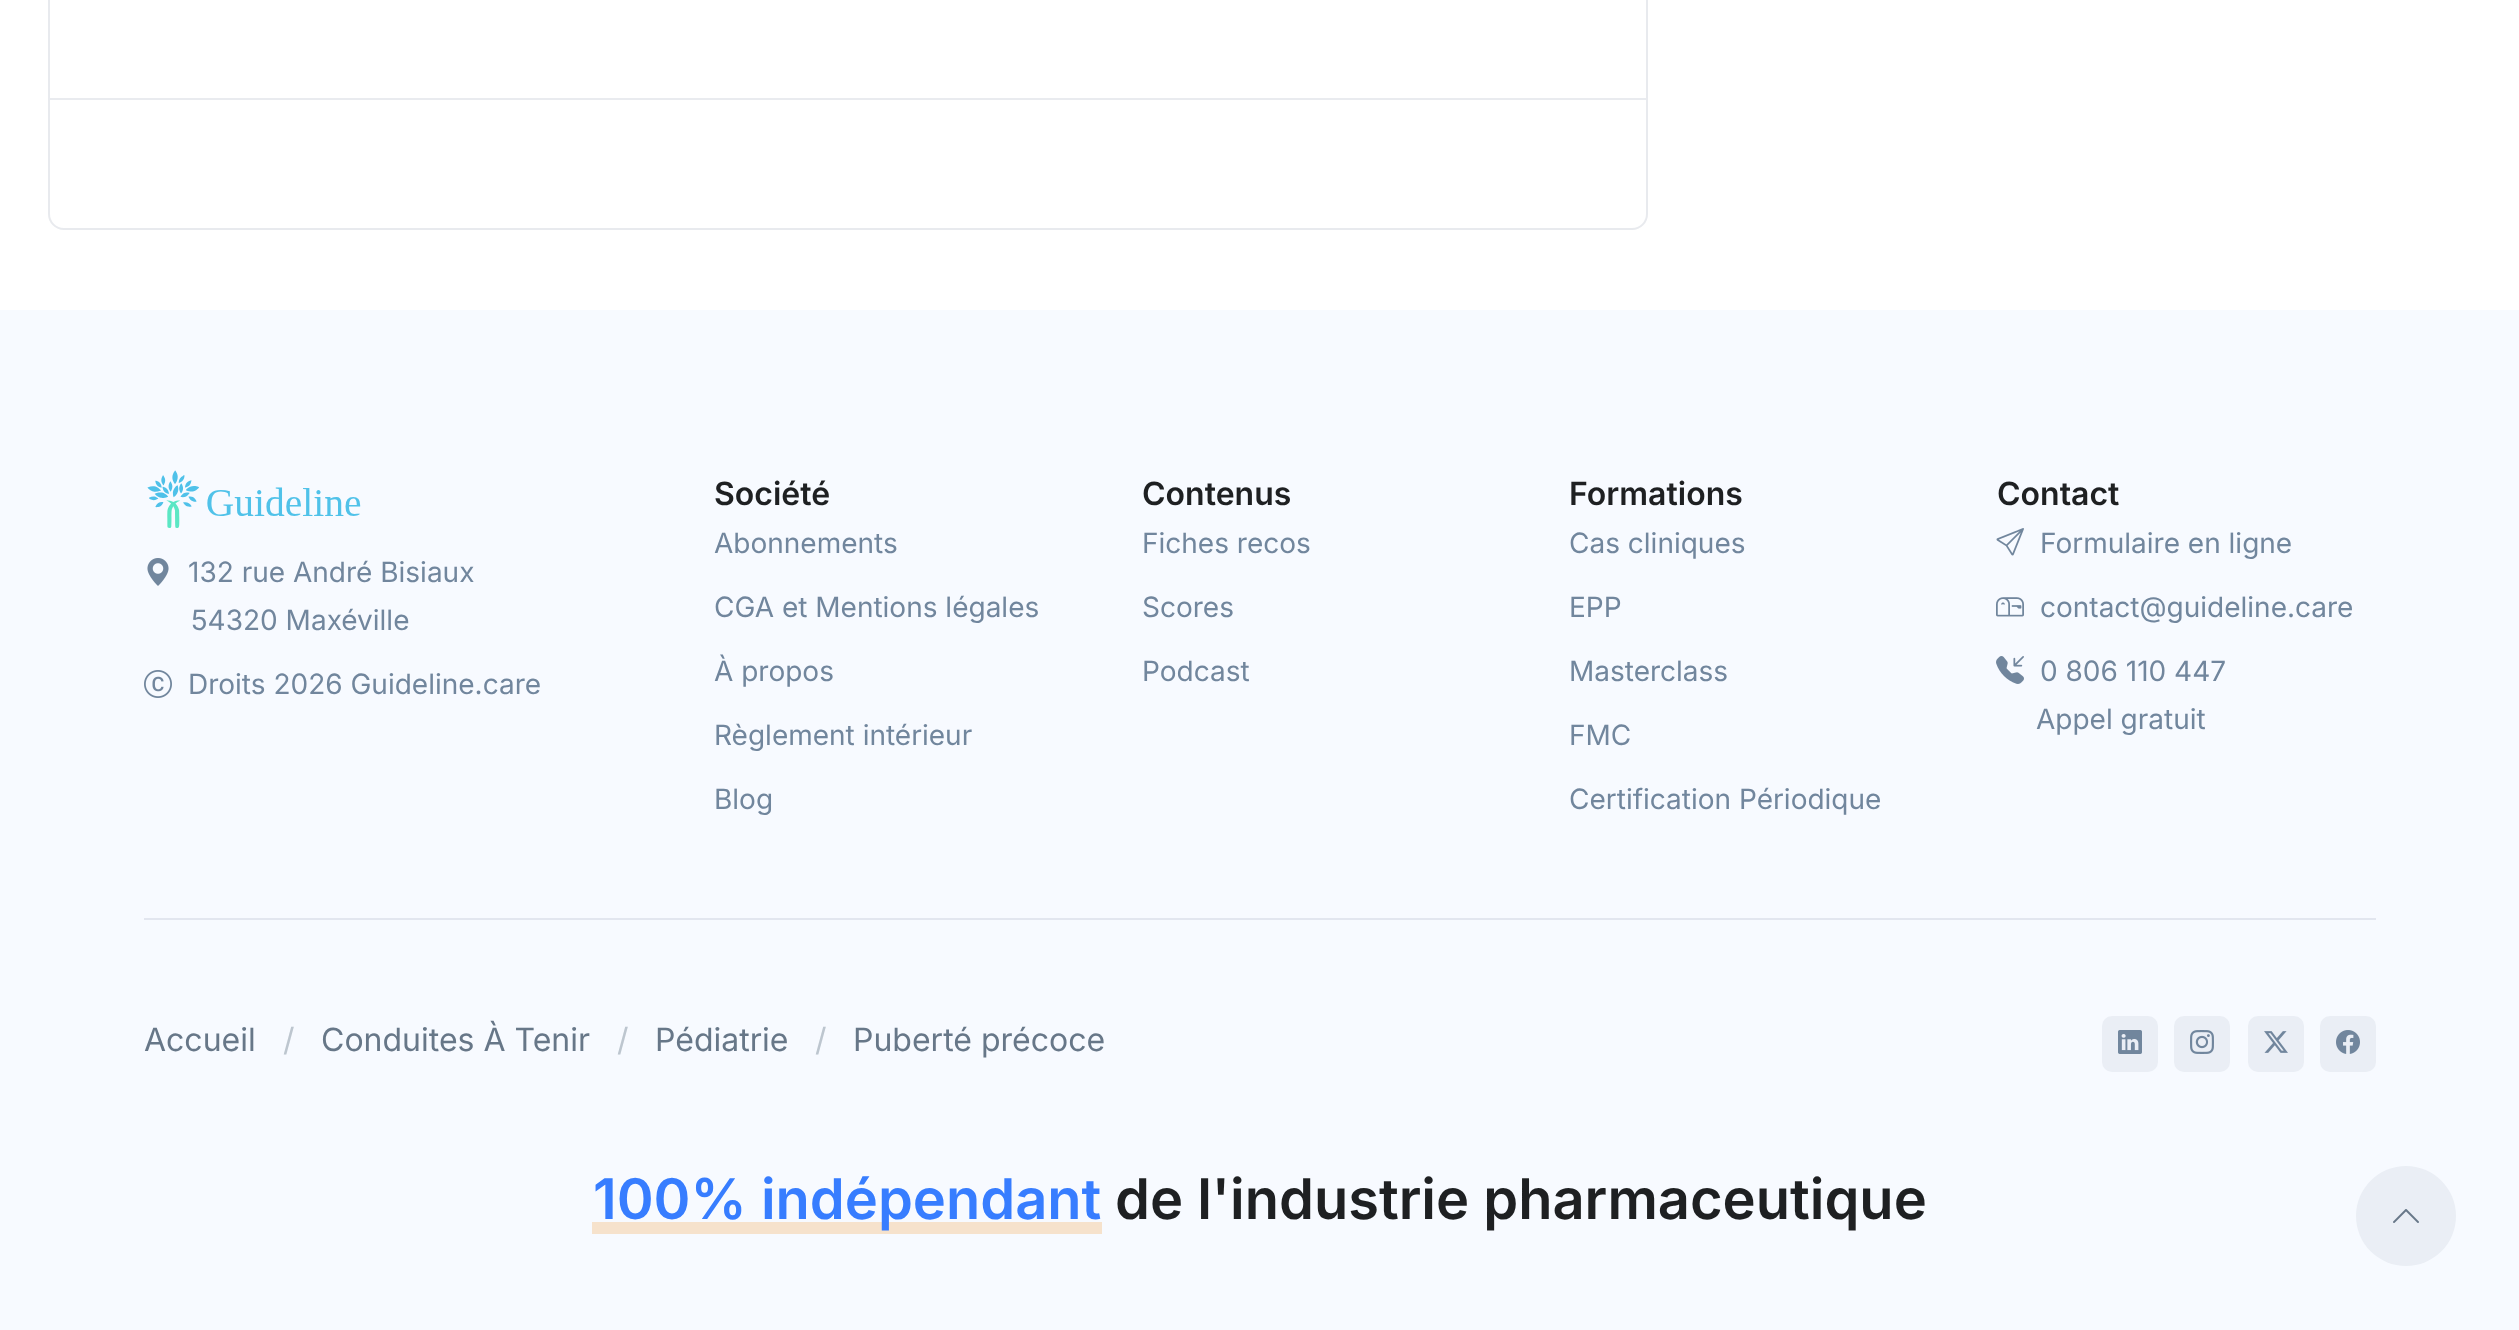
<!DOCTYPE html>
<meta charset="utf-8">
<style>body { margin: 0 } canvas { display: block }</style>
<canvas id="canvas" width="2519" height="1330"></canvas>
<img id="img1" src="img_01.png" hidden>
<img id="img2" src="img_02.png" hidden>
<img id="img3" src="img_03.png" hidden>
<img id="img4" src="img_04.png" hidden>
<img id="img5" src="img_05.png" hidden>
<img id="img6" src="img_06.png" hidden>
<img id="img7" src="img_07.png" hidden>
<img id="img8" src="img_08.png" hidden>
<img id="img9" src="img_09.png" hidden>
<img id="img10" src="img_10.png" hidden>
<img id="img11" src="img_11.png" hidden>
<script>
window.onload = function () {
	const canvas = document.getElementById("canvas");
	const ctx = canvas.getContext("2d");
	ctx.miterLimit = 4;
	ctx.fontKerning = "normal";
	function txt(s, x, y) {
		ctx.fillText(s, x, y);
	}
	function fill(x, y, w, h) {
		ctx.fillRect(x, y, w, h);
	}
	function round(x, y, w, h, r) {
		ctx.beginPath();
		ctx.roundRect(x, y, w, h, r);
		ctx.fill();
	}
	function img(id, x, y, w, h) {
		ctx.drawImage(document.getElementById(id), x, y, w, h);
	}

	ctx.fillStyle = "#FFFFFF";
	fill(0, 0, 2519, 1330);
	ctx.beginPath();
	ctx.roundRect(49, -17, 1598, 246, 15);
	ctx.strokeStyle = "rgba(33, 50, 91, 0.1)";
	ctx.lineWidth = 2;
	ctx.stroke();
	ctx.fillStyle = "#E9EBEF";
	fill(50, 98, 1596, 2);
	ctx.fillStyle = "#F7FAFF";
	fill(0, 310, 2519, 1020);
	img("img1", 147, 470, 214, 58);
	img("img2", 147, 558, 22, 28);
	img("img3", 144, 670, 28, 28);
	img("img4", 1996, 528, 28, 28);
	img("img5", 1996, 597, 28, 20);
	img("img6", 1996, 656, 28, 28);
	ctx.fillStyle = "#E2E6EF";
	fill(144, 918, 2232, 2);
	ctx.fillStyle = "#EAEEF5";
	round(2102, 1016, 56, 56, 10);
	img("img7", 2118, 1030, 24, 24);
	round(2174, 1016, 56, 56, 10);
	img("img8", 2190, 1030, 24, 24);
	round(2248, 1016, 56, 56, 10);
	img("img9", 2264, 1031, 24, 22);
	round(2320, 1016, 56, 56, 10);
	img("img10", 2336, 1030, 24, 24);
	ctx.fillStyle = "#F6E2CC";
	fill(592, 1222, 510, 12);
	ctx.fillStyle = "#EAEEF5";
	ctx.beginPath();
	ctx.arc(2406, 1216, 50, 0, Math.PI * 2);
	ctx.fill();
	img("img11", 2393, 1209, 26, 14);
	ctx.font = "28px Inter";
	ctx.fillStyle = "#71869D";
	txt("132 rue André Bisiaux", 188, 582);
	txt("54320 Maxéville", 191, 630);
	txt("Droits 2026 Guideline.care", 188, 694);
	ctx.font = "600 32px Inter";
	ctx.fillStyle = "#1E2022";
	txt("Société", 714, 505);
	ctx.font = "28px Inter";
	ctx.fillStyle = "#71869D";
	txt("Abonnements", 714, 553);
	txt("CGA et Mentions légales", 714, 617);
	txt("À propos", 714, 681);
	txt("Règlement intérieur", 714, 745);
	txt("Blog", 714, 809);
	ctx.font = "600 32px Inter";
	ctx.fillStyle = "#1E2022";
	txt("Contenus", 1142, 505);
	ctx.font = "28px Inter";
	ctx.fillStyle = "#71869D";
	txt("Fiches recos", 1142, 553);
	txt("Scores", 1142, 617);
	txt("Podcast", 1142, 681);
	ctx.font = "600 32px Inter";
	ctx.fillStyle = "#1E2022";
	txt("Formations", 1569, 505);
	ctx.font = "28px Inter";
	ctx.fillStyle = "#71869D";
	txt("Cas cliniques", 1569, 553);
	txt("EPP", 1569, 617);
	txt("Masterclass", 1569, 681);
	txt("FMC", 1569, 745);
	txt("Certification Périodique", 1569, 809);
	ctx.font = "600 32px Inter";
	ctx.fillStyle = "#1E2022";
	txt("Contact", 1997, 505);
	ctx.font = "28px Inter";
	ctx.fillStyle = "#71869D";
	txt("Formulaire en ligne", 2040, 553);
	txt("contact@guideline.care", 2040, 617);
	txt("0 806 110 447", 2040, 681);
	txt("Appel gratuit", 2036, 729);
	ctx.font = "32px Inter";
	ctx.fillStyle = "#677788";
	txt("Accueil", 144, 1051);
	ctx.fillStyle = "#BDC6CF";
	txt("/", 283, 1051);
	ctx.fillStyle = "#677788";
	txt("Conduites À Tenir", 321, 1051);
	ctx.fillStyle = "#BDC6CF";
	txt("/", 617, 1051);
	ctx.fillStyle = "#677788";
	txt("Pédiatrie", 655, 1051);
	ctx.fillStyle = "#BDC6CF";
	txt("/", 815, 1051);
	ctx.fillStyle = "#677788";
	txt("Puberté précoce", 853, 1051);
	ctx.font = "600 56px Inter";
	ctx.fillStyle = "#377DFF";
	txt("100% indépendant", 593, 1219);
	ctx.fillStyle = "#1E2022";
	txt("de l'industrie pharmaceutique", 1115, 1219);
};
</script>
